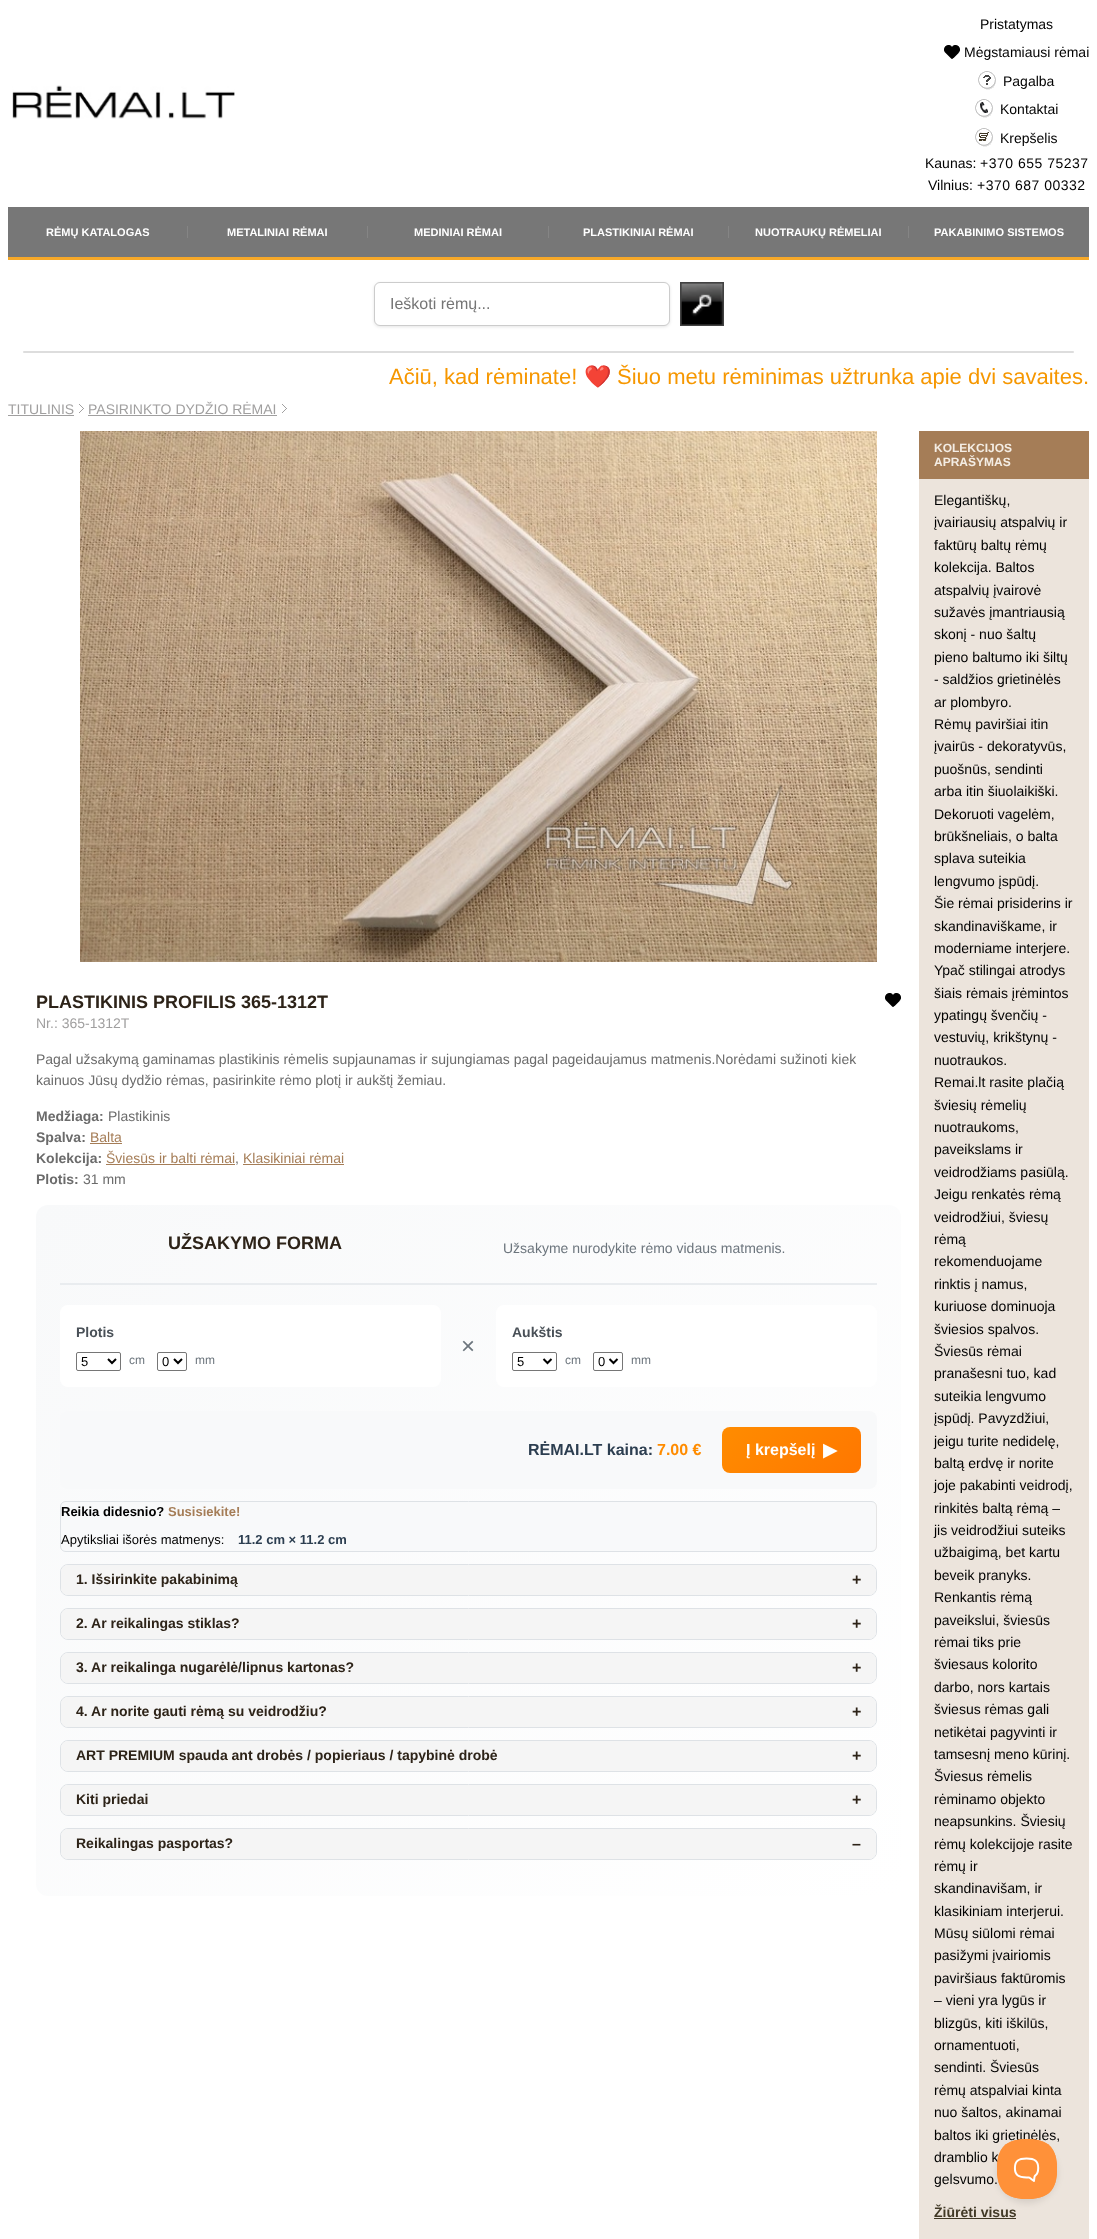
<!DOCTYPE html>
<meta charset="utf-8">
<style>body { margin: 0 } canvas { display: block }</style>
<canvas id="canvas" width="1097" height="2239"></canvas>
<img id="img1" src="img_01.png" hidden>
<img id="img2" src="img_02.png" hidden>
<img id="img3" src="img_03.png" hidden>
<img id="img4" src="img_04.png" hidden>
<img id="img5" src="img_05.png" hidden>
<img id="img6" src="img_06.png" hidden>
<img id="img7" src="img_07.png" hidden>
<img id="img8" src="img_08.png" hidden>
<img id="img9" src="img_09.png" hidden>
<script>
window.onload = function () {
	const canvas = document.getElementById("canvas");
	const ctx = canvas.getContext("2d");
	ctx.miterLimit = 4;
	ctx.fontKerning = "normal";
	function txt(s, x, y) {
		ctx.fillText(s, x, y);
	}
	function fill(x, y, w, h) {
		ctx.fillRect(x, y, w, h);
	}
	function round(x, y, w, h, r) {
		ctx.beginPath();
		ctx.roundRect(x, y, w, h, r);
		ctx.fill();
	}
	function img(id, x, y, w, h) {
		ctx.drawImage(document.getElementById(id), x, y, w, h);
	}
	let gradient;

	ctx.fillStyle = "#FFFFFF";
	fill(0, 0, 1097, 2239);
	img("img1", 12, 85, 223, 34);
	img("img2", 944, 45, 16, 14);
	img("img3", 978, 71, 18, 19);
	img("img4", 975, 99, 18, 19);
	img("img5", 975, 128, 18, 19);
	ctx.fillStyle = "#777777";
	fill(8, 207, 1081, 50);
	ctx.fillStyle = "#F6A828";
	fill(8, 257, 1081, 3);
	ctx.fillStyle = "#858585";
	fill(187, 226, 1, 12);
	fill(367, 226, 1, 12);
	fill(548, 226, 1, 12);
	fill(728, 226, 1, 12);
	fill(908, 226, 1, 12);
	ctx.fillStyle = "rgba(0, 0, 0, 0.1)";
	ctx.filter = "blur(1.5px)";
	ctx.beginPath();
	ctx.roundRect(374, 283, 296, 44, 6);
	ctx.fill();
	ctx.filter = "none";
	ctx.fillStyle = "#FFFFFF";
	ctx.beginPath();
	ctx.roundRect(374.5, 282.5, 295, 43, 5.5);
	ctx.fill();
	ctx.strokeStyle = "#CCCCCC";
	ctx.stroke();
	img("img6", 680, 282, 44, 44);
	ctx.fillStyle = "#DDDDDD";
	round(23, 351, 1051, 2, 1);
	img("img7", 79, 404, 5, 9);
	ctx.fillStyle = "#A09F9F";
	fill(8, 415, 66, 1);
	img("img7", 282, 404, 5, 9);
	fill(88, 415, 189, 1);
	img("img8", 80, 431, 797, 531);
	img("img2", 885, 993, 16, 14);
	ctx.fillStyle = "#A57D57";
	fill(90, 1143, 32, 1);
	fill(106, 1164, 129, 1);
	fill(243, 1164, 101, 1);
	gradient = ctx.createLinearGradient(79, 1162, 858, 1940);
	gradient.addColorStop(0, "#F8F9FA");
	gradient.addColorStop(1, "#FFFFFF");
	ctx.fillStyle = gradient;
	round(36, 1205, 865, 691, 12);
	ctx.fillStyle = "#E9ECEF";
	fill(60, 1283, 817, 2);
	ctx.fillStyle = "#FFFFFF";
	round(60, 1305, 381, 82, 8);
	ctx.beginPath();
	ctx.roundRect(76.5, 1352.5, 44, 18, 1.5);
	ctx.strokeStyle = "#767676";
	ctx.stroke();
	ctx.beginPath();
	ctx.moveTo(108, 1359);
	ctx.lineTo(112, 1363);
	ctx.lineTo(116, 1359);
	ctx.strokeStyle = "#000000";
	ctx.lineWidth = 2;
	ctx.stroke();
	ctx.beginPath();
	ctx.roundRect(157.5, 1352.5, 29, 18, 1.5);
	ctx.strokeStyle = "#767676";
	ctx.lineWidth = 1;
	ctx.stroke();
	ctx.beginPath();
	ctx.moveTo(174, 1359);
	ctx.lineTo(178, 1363);
	ctx.lineTo(182, 1359);
	ctx.strokeStyle = "#000000";
	ctx.lineWidth = 2;
	ctx.stroke();
	round(496, 1305, 381, 82, 8);
	ctx.beginPath();
	ctx.roundRect(512.5, 1352.5, 44, 18, 1.5);
	ctx.strokeStyle = "#767676";
	ctx.lineWidth = 1;
	ctx.stroke();
	ctx.beginPath();
	ctx.moveTo(543.5, 1359);
	ctx.lineTo(547.5, 1363);
	ctx.lineTo(551.5, 1359);
	ctx.strokeStyle = "#000000";
	ctx.lineWidth = 2;
	ctx.stroke();
	ctx.beginPath();
	ctx.roundRect(593.5, 1352.5, 29, 18, 1.5);
	ctx.strokeStyle = "#767676";
	ctx.lineWidth = 1;
	ctx.stroke();
	ctx.beginPath();
	ctx.moveTo(609.5, 1359);
	ctx.lineTo(613.5, 1363);
	ctx.lineTo(617.5, 1359);
	ctx.strokeStyle = "#000000";
	ctx.lineWidth = 2;
	ctx.stroke();
	ctx.fillStyle = "#F8F9FA";
	round(60, 1411, 817, 78, 8);
	gradient = ctx.createLinearGradient(745, 1404, 838, 1496);
	gradient.addColorStop(0, "#FF8C00");
	gradient.addColorStop(1, "#FF7700");
	ctx.fillStyle = gradient;
	round(722, 1427, 139, 46, 8);
	ctx.fillStyle = "#F8F9FA";
	round(60, 1501, 817, 51, 6);
	ctx.beginPath();
	ctx.moveTo(875, 1503);
	ctx.bezierCurveTo(876, 1504, 876.5, 1505.5, 876.5, 1507);
	ctx.lineTo(876.5, 1546);
	ctx.bezierCurveTo(876.5, 1547.5, 876, 1549, 875, 1550);
	ctx.strokeStyle = "#E5E5E5";
	ctx.lineWidth = 1;
	ctx.stroke();
	ctx.beginPath();
	ctx.moveTo(875, 1550);
	ctx.bezierCurveTo(874, 1551, 872.5, 1551.5, 871, 1551.5);
	ctx.lineTo(66, 1551.5);
	ctx.bezierCurveTo(64.5, 1551.5, 63, 1551, 62, 1550);
	ctx.bezierCurveTo(61, 1549, 60.5, 1547.5, 60.5, 1546);
	ctx.lineTo(60.5, 1507);
	ctx.bezierCurveTo(60.5, 1505.5, 61, 1504, 62, 1503);
	ctx.bezierCurveTo(63, 1502, 64.5, 1501.5, 66, 1501.5);
	ctx.lineTo(871, 1501.5);
	ctx.bezierCurveTo(872.5, 1501.5, 874, 1502, 875, 1503);
	ctx.strokeStyle = "#DEE2E6";
	ctx.stroke();
	ctx.beginPath();
	ctx.roundRect(60.5, 1564.5, 816, 31, 7.5);
	ctx.stroke();
	ctx.fillStyle = "#F5F5F5";
	round(61, 1565, 815, 30, 7);
	ctx.beginPath();
	ctx.roundRect(60.5, 1608.5, 816, 31, 7.5);
	ctx.stroke();
	round(61, 1609, 815, 30, 7);
	ctx.beginPath();
	ctx.roundRect(60.5, 1652.5, 816, 31, 7.5);
	ctx.stroke();
	round(61, 1653, 815, 30, 7);
	ctx.beginPath();
	ctx.roundRect(60.5, 1696.5, 816, 31, 7.5);
	ctx.stroke();
	round(61, 1697, 815, 30, 7);
	ctx.beginPath();
	ctx.roundRect(60.5, 1740.5, 816, 31, 7.5);
	ctx.stroke();
	round(61, 1741, 815, 30, 7);
	ctx.beginPath();
	ctx.roundRect(60.5, 1784.5, 816, 31, 7.5);
	ctx.stroke();
	round(61, 1785, 815, 30, 7);
	ctx.beginPath();
	ctx.roundRect(60.5, 1828.5, 816, 31, 7.5);
	ctx.stroke();
	round(61, 1829, 815, 30, 7);
	ctx.fillStyle = "#ECE4DC";
	fill(919, 479, 170, 1760);
	ctx.fillStyle = "#A57D57";
	fill(919, 431, 170, 48);
	ctx.fillStyle = "#413926";
	fill(934, 2218, 82, 1);
	ctx.fillStyle = "rgba(0, 0, 0, 0.1)";
	ctx.filter = "blur(3.5px)";
	ctx.beginPath();
	ctx.roundRect(997, 2143, 60, 60, 30);
	ctx.fill();
	ctx.filter = "none";
	ctx.font = "14px Liberation Sans";
	ctx.fillStyle = "#000000";
	txt("Pristatymas", 980, 29);
	txt("Mėgstamiausi rėmai", 964, 57);
	txt("Pagalba", 1003, 86);
	txt("Kontaktai", 1000, 114);
	txt("Krepšelis", 1000, 143);
	txt("Kaunas:", 925, 168);
	ctx.letterSpacing = "0.5px";
	txt("+370 655 75237", 980, 168);
	ctx.letterSpacing = "0px";
	txt("Vilnius:", 928, 190);
	ctx.letterSpacing = "0.5px";
	txt("+370 687 00332", 977, 190);
	ctx.letterSpacing = "0px";
	ctx.font = "bold 11px Liberation Sans";
	ctx.fillStyle = "#FFFFFF";
	txt("RĖMŲ KATALOGAS", 46, 236);
	txt("METALINIAI RĖMAI", 227, 236);
	txt("MEDINIAI RĖMAI", 414, 236);
	txt("PLASTIKINIAI RĖMAI", 583, 236);
	txt("NUOTRAUKŲ RĖMELIAI", 755, 236);
	txt("PAKABINIMO SISTEMOS", 934, 236);
	ctx.font = "16px Liberation Sans";
	ctx.fillStyle = "#757575";
	txt("Ieškoti rėmų...", 390, 309);
	ctx.font = "22px Liberation Sans";
	ctx.fillStyle = "#F69700";
	txt("Ačiū, kad rėminate!", 389, 384);
	ctx.font = "22px Noto Color Emoji";
	txt("❤️", 584, 384);
	ctx.font = "22px Liberation Sans";
	txt("Šiuo metu rėminimas užtrunka apie dvi savaites.", 617, 384);
	ctx.font = "14px Liberation Sans";
	ctx.fillStyle = "#A09F9F";
	txt("TITULINIS", 8, 414);
	txt("PASIRINKTO DYDŽIO RĖMAI", 88, 414);
	ctx.font = "bold 18px Liberation Sans";
	ctx.fillStyle = "#2D2318";
	txt("PLASTIKINIS PROFILIS 365-1312T", 36, 1008);
	ctx.font = "14px Liberation Sans";
	ctx.fillStyle = "#A09F9F";
	txt("Nr.: 365-1312T", 36, 1028);
	ctx.fillStyle = "#6B6B6B";
	txt("Pagal užsakymą gaminamas plastikinis rėmelis supjaunamas ir sujungiamas pagal pageidaujamus matmenis.Norėdami sužinoti kiek", 36, 1064);
	txt("kainuos Jūsų dydžio rėmas, pasirinkite rėmo plotį ir aukštį žemiau.", 36, 1085);
	ctx.font = "bold 14px Liberation Sans";
	txt("Medžiaga:", 36, 1121);
	ctx.font = "14px Liberation Sans";
	txt("Plastikinis", 108, 1121);
	ctx.font = "bold 14px Liberation Sans";
	txt("Spalva:", 36, 1142);
	ctx.font = "14px Liberation Sans";
	ctx.fillStyle = "#A57D57";
	txt("Balta", 90, 1142);
	ctx.font = "bold 14px Liberation Sans";
	ctx.fillStyle = "#6B6B6B";
	txt("Kolekcija:", 36, 1163);
	ctx.font = "14px Liberation Sans";
	ctx.fillStyle = "#A57D57";
	txt("Šviesūs ir balti rėmai", 106, 1163);
	ctx.fillStyle = "#6B6B6B";
	txt(",", 235, 1163);
	ctx.fillStyle = "#A57D57";
	txt("Klasikiniai rėmai", 243, 1163);
	ctx.font = "bold 14px Liberation Sans";
	ctx.fillStyle = "#6B6B6B";
	txt("Plotis:", 36, 1184);
	ctx.font = "14px Liberation Sans";
	txt("31 mm", 83, 1184);
	ctx.font = "bold 18px Liberation Sans";
	ctx.fillStyle = "#2D2318";
	txt("UŽSAKYMO FORMA", 168, 1249);
	ctx.font = "14px Liberation Sans";
	ctx.fillStyle = "#6C757D";
	txt("Užsakyme nurodykite rėmo vidaus matmenis.", 503, 1253);
	ctx.font = "bold 14px Liberation Sans";
	ctx.fillStyle = "#495057";
	txt("Plotis", 76, 1337);
	ctx.font = "13px Liberation Sans";
	ctx.fillStyle = "#000000";
	txt("5", 81, 1366);
	ctx.font = "12px Liberation Sans";
	ctx.fillStyle = "#6C757D";
	txt("cm", 129, 1364);
	ctx.font = "13px Liberation Sans";
	ctx.fillStyle = "#000000";
	txt("0", 162, 1366);
	ctx.font = "12px Liberation Sans";
	ctx.fillStyle = "#6C757D";
	txt("mm", 195, 1364);
	ctx.font = "24px Liberation Sans";
	txt("×", 461, 1354);
	ctx.font = "bold 14px Liberation Sans";
	ctx.fillStyle = "#495057";
	txt("Aukštis", 512, 1337);
	ctx.font = "13px Liberation Sans";
	ctx.fillStyle = "#000000";
	txt("5", 517, 1366);
	ctx.font = "12px Liberation Sans";
	ctx.fillStyle = "#6C757D";
	txt("cm", 565, 1364);
	ctx.font = "13px Liberation Sans";
	ctx.fillStyle = "#000000";
	txt("0", 598, 1366);
	ctx.font = "12px Liberation Sans";
	ctx.fillStyle = "#6C757D";
	txt("mm", 631, 1364);
	ctx.font = "bold 16px Liberation Sans";
	ctx.fillStyle = "#2C3E50";
	txt("RĖMAI.LT kaina:", 528, 1455);
	ctx.fillStyle = "#FF8C00";
	txt("7.00 €", 657, 1455);
	ctx.fillStyle = "#FFFFFF";
	txt("Į krepšelį", 746, 1455);
	ctx.font = "bold 18px DejaVu Sans";
	txt("▶", 823, 1456);
	ctx.font = "bold 13px Liberation Sans";
	ctx.fillStyle = "#000000";
	txt("Reikia didesnio?", 61, 1516);
	ctx.fillStyle = "#A57D57";
	txt("Susisiekite!", 168, 1516);
	ctx.font = "13px Liberation Sans";
	ctx.fillStyle = "#000000";
	txt("Apytiksliai išorės matmenys:", 61, 1544);
	ctx.font = "bold 13px Liberation Sans";
	ctx.fillStyle = "#2C3E50";
	txt("11.2 cm × 11.2 cm", 238, 1544);
	ctx.font = "bold 14px Liberation Sans";
	ctx.fillStyle = "#2D2318";
	txt("1. Išsirinkite pakabinimą", 76, 1584);
	ctx.font = "bold 16px Liberation Sans";
	txt("+", 852, 1585);
	ctx.font = "bold 14px Liberation Sans";
	txt("2. Ar reikalingas stiklas?", 76, 1628);
	ctx.font = "bold 16px Liberation Sans";
	txt("+", 852, 1629);
	ctx.font = "bold 14px Liberation Sans";
	txt("3. Ar reikalinga nugarėlė/lipnus kartonas?", 76, 1672);
	ctx.font = "bold 16px Liberation Sans";
	txt("+", 852, 1673);
	ctx.font = "bold 14px Liberation Sans";
	txt("4. Ar norite gauti rėmą su veidrodžiu?", 76, 1716);
	ctx.font = "bold 16px Liberation Sans";
	txt("+", 852, 1717);
	ctx.font = "bold 14px Liberation Sans";
	txt("ART PREMIUM spauda ant drobės / popieriaus / tapybinė drobė", 76, 1760);
	ctx.font = "bold 16px Liberation Sans";
	txt("+", 852, 1761);
	ctx.font = "bold 14px Liberation Sans";
	txt("Kiti priedai", 76, 1804);
	ctx.font = "bold 16px Liberation Sans";
	txt("+", 852, 1805);
	ctx.font = "bold 14px Liberation Sans";
	txt("Reikalingas pasportas?", 76, 1848);
	ctx.font = "bold 16px Liberation Sans";
	txt("–", 852, 1849);
	ctx.font = "bold 12px Liberation Sans";
	ctx.fillStyle = "#F4EDE4";
	txt("KOLEKCIJOS", 934, 452);
	txt("APRAŠYMAS", 934, 466);
	ctx.font = "14px Liberation Sans";
	ctx.fillStyle = "#000000";
	txt("Elegantiškų,", 934, 505);
	txt("įvairiausių atspalvių ir", 934, 527);
	txt("faktūrų baltų rėmų", 934, 550);
	txt("kolekcija. Baltos", 934, 572);
	txt("atspalvių įvairovė", 934, 595);
	txt("sužavės įmantriausią", 934, 617);
	txt("skonį - nuo šaltų", 934, 639);
	txt("pieno baltumo iki šiltų", 934, 662);
	txt("- saldžios grietinėlės", 934, 684);
	txt("ar plombyro.", 934, 707);
	txt("Rėmų paviršiai itin", 934, 729);
	txt("įvairūs - dekoratyvūs,", 934, 751);
	txt("puošnūs, sendinti", 934, 774);
	txt("arba itin šiuolaikiški.", 934, 796);
	txt("Dekoruoti vagelėm,", 934, 819);
	txt("brūkšneliais, o balta", 934, 841);
	txt("splava suteikia", 934, 863);
	txt("lengvumo įspūdį.", 934, 886);
	txt("Šie rėmai prisiderins ir", 934, 908);
	txt("skandinaviškame, ir", 934, 931);
	txt("moderniame interjere.", 934, 953);
	txt("Ypač stilingai atrodys", 934, 975);
	txt("šiais rėmais įrėmintos", 934, 998);
	txt("ypatingų švenčių -", 934, 1020);
	txt("vestuvių, krikštynų -", 934, 1042);
	txt("nuotraukos.", 934, 1065);
	txt("Remai.lt rasite plačią", 934, 1087);
	txt("šviesių rėmelių", 934, 1110);
	txt("nuotraukoms,", 934, 1132);
	txt("paveikslams ir", 934, 1154);
	txt("veidrodžiams pasiūlą.", 934, 1177);
	txt("Jeigu renkatės rėmą", 934, 1199);
	txt("veidrodžiui, šviesų", 934, 1222);
	txt("rėmą", 934, 1244);
	txt("rekomenduojame", 934, 1266);
	txt("rinktis į namus,", 934, 1289);
	txt("kuriuose dominuoja", 934, 1311);
	txt("šviesios spalvos.", 934, 1334);
	txt("Šviesūs rėmai", 934, 1356);
	txt("pranašesni tuo, kad", 934, 1378);
	txt("suteikia lengvumo", 934, 1401);
	txt("įspūdį. Pavyzdžiui,", 934, 1423);
	txt("jeigu turite nedidelę,", 934, 1446);
	txt("baltą erdvę ir norite", 934, 1468);
	txt("joje pakabinti veidrodį,", 934, 1490);
	txt("rinkitės baltą rėmą –", 934, 1513);
	txt("jis veidrodžiui suteiks", 934, 1535);
	txt("užbaigimą, bet kartu", 934, 1557);
	txt("beveik pranyks.", 934, 1580);
	txt("Renkantis rėmą", 934, 1602);
	txt("paveikslui, šviesūs", 934, 1625);
	txt("rėmai tiks prie", 934, 1647);
	txt("šviesaus kolorito", 934, 1669);
	txt("darbo, nors kartais", 934, 1692);
	txt("šviesus rėmas gali", 934, 1714);
	txt("netikėtai pagyvinti ir", 934, 1737);
	txt("tamsesnį meno kūrinį.", 934, 1759);
	txt("Šviesus rėmelis", 934, 1781);
	txt("rėminamo objekto", 934, 1804);
	txt("neapsunkins. Šviesių", 934, 1826);
	txt("rėmų kolekcijoje rasite", 934, 1849);
	txt("rėmų ir", 934, 1871);
	txt("skandinavišam, ir", 934, 1893);
	txt("klasikiniam interjerui.", 934, 1916);
	txt("Mūsų siūlomi rėmai", 934, 1938);
	txt("pasižymi įvairiomis", 934, 1960);
	txt("paviršiaus faktūromis", 934, 1983);
	txt("– vieni yra lygūs ir", 934, 2005);
	txt("blizgūs, kiti iškilūs,", 934, 2028);
	txt("ornamentuoti,", 934, 2050);
	txt("sendinti. Šviesūs", 934, 2072);
	txt("rėmų atspalviai kinta", 934, 2095);
	txt("nuo šaltos, akinamai", 934, 2117);
	txt("baltos iki grietinėlės,", 934, 2140);
	txt("dramblio k", 934, 2162);
	txt("gelsvumo.", 934, 2184);
	ctx.font = "bold 14px Liberation Sans";
	ctx.fillStyle = "#413926";
	txt("Žiūrėti visus", 934, 2217);
	img("img9", 997, 2139, 60, 60);
};
</script>
